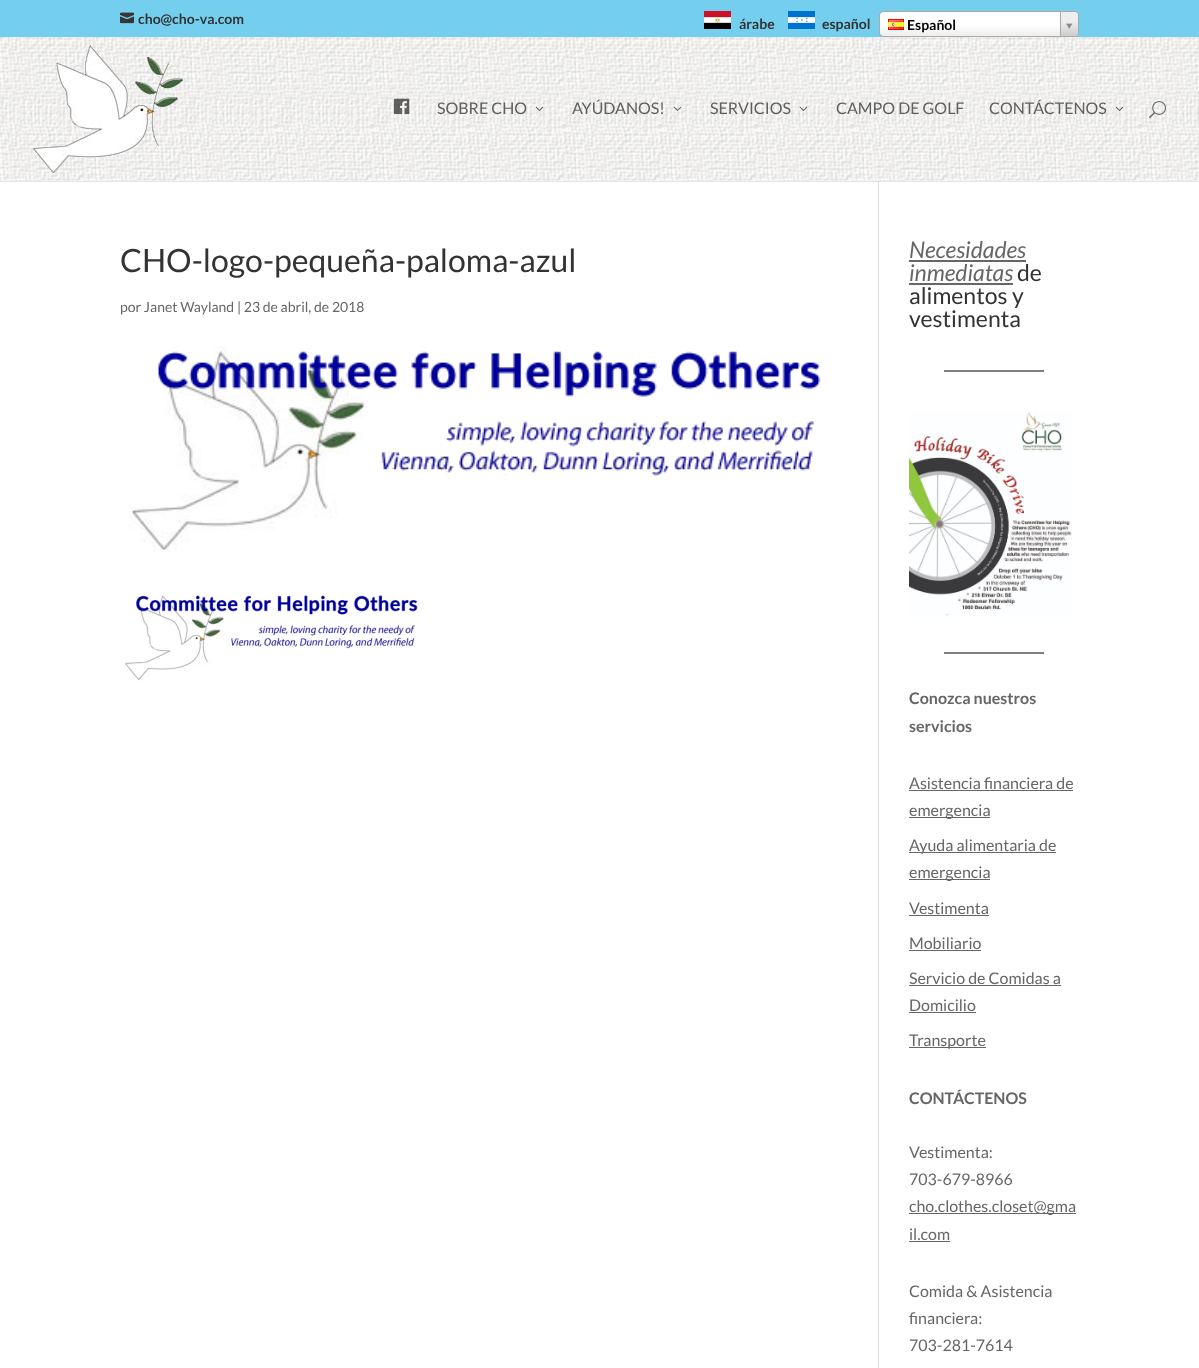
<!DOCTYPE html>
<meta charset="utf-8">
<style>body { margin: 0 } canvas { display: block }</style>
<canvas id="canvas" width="1199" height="1368"></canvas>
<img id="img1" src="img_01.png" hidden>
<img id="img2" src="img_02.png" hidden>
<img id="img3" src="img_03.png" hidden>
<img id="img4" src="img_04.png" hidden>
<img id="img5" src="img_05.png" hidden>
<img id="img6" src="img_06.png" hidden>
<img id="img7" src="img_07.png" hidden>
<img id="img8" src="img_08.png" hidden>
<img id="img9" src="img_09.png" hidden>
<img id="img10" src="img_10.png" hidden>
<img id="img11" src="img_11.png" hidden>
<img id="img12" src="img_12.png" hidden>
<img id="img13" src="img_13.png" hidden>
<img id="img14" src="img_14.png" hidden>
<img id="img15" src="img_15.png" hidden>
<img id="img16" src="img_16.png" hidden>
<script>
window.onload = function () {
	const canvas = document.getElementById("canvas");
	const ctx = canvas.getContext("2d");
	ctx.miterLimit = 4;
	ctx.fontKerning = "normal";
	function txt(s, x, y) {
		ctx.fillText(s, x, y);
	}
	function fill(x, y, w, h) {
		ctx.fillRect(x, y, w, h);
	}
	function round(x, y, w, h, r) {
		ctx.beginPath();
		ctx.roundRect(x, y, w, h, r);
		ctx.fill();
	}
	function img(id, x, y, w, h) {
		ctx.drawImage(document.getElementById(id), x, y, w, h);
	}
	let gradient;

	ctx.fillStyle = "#FFFFFF";
	fill(0, 0, 1199, 1368);
	ctx.fillStyle = "#E6E6E6";
	fill(0, 181, 1199, 1);
	ctx.fillStyle = "#74CFEF";
	fill(0, 0, 1199, 37);
	img("img1", 120, 12, 14, 12);
	img("img2", 704, 11, 27, 18);
	img("img3", 788, 11, 27, 18);
	gradient = ctx.createLinearGradient(880, 36, 880, 12);
	gradient.addColorStop(0, "#EEEEEE");
	gradient.addColorStop(0.5, "#FFFFFF");
	ctx.fillStyle = gradient;
	round(880, 12, 198, 24, 3);
	ctx.beginPath();
	ctx.roundRect(879.5, 11.5, 199, 25, 3.5);
	ctx.strokeStyle = "#AAAAAA";
	ctx.stroke();
	img("img4", 888, 19, 16, 11);
	ctx.save();
	ctx.beginPath();
	ctx.roundRect(880, 12, 198, 24, 3);
	ctx.clip();
	gradient = ctx.createLinearGradient(1061, 36, 1061, 12);
	gradient.addColorStop(0, "#CCCCCC");
	gradient.addColorStop(0.6, "#EEEEEE");
	ctx.fillStyle = gradient;
	ctx.beginPath();
	ctx.roundRect(1060, 12, 18, 24, [0, 4, 4, 0]);
	ctx.fill();
	ctx.restore();
	ctx.fillStyle = "#AAAAAA";
	fill(1060, 12, 1, 24);
	img("img5", 1066, 23, 7, 6);
	ctx.fillStyle = "#E2E2E2";
	fill(878, 180, 1, 1188);
	img("img6", 0, 37, 1199, 144);
	img("img7", 33, 45, 150, 128);
	img("img8", 393, 98, 17, 17);
	img("img9", 535, 106, 9, 5);
	img("img10", 673, 106, 9, 5);
	img("img11", 799, 106, 9, 5);
	img("img12", 1115, 106, 9, 5);
	img("img13", 1149, 101, 17, 18);
	ctx.fillStyle = "#CBCBCB";
	fill(878, 181, 1, 1);
	img("img14", 128, 346, 693, 206);
	img("img15", 124, 594, 294, 87);
	ctx.fillStyle = "#666666";
	fill(909, 260, 117, 2);
	fill(909, 283, 104, 2);
	ctx.fillStyle = "#808080";
	fill(944, 370, 100, 2);
	img("img16", 909, 411, 163, 206);
	fill(944, 652, 100, 2);
	ctx.fillStyle = "#666666";
	fill(909, 790, 164, 1);
	fill(909, 817, 81, 1);
	fill(909, 852, 147, 1);
	fill(909, 879, 81, 1);
	fill(909, 915, 80, 1);
	fill(909, 950, 72, 1);
	fill(909, 985, 152, 1);
	fill(909, 1012, 67, 1);
	fill(909, 1047, 77, 1);
	fill(909, 1213, 167, 1);
	fill(909, 1241, 41, 1);
	ctx.font = "bold 14px Lato";
	ctx.fillStyle = "#333333";
	txt("cho@cho-va.com", 138, 24);
	txt("árabe", 739, 29);
	txt("español", 822, 29);
	ctx.fillStyle = "#000000";
	txt("Español", 907, 30);
	ctx.font = "16px Lato";
	ctx.fillStyle = "#5F5F5E";
	txt("SOBRE CHO", 437, 114);
	txt("AYÚDANOS!", 572, 114);
	txt("SERVICIOS", 710, 114);
	txt("CAMPO DE GOLF", 836, 114);
	txt("CONTÁCTENOS", 989, 114);
	ctx.font = "32px Lato";
	ctx.fillStyle = "#333333";
	txt("CHO-logo-pequeña-paloma-azul", 120, 272);
	ctx.font = "14px Lato";
	ctx.fillStyle = "#666666";
	txt("por Janet Wayland | 23 de abril, de 2018", 120, 312);
	ctx.font = "italic 23px Lato";
	txt("Necesidades", 909, 258);
	txt("inmediatas", 909, 281);
	ctx.font = "23px Lato";
	ctx.fillStyle = "#333333";
	txt("de", 1017, 281);
	txt("alimentos y", 909, 304);
	txt("vestimenta", 909, 327);
	ctx.font = "bold 16px Lato";
	ctx.fillStyle = "#666666";
	txt("Conozca nuestros", 909, 704);
	txt("servicios", 909, 732);
	ctx.font = "16px Lato";
	txt("Asistencia financiera de", 909, 789);
	txt("emergencia", 909, 816);
	txt("Ayuda alimentaria de", 909, 851);
	txt("emergencia", 909, 878);
	txt("Vestimenta", 909, 914);
	txt("Mobiliario", 909, 949);
	txt("Servicio de Comidas a", 909, 984);
	txt("Domicilio", 909, 1011);
	txt("Transporte", 909, 1046);
	ctx.font = "bold 16px Lato";
	txt("CONTÁCTENOS", 909, 1104);
	ctx.font = "16px Lato";
	txt("Vestimenta:", 909, 1158);
	txt("703-679-8966", 909, 1185);
	txt("cho.clothes.closet@gma", 909, 1212);
	txt("il.com", 909, 1240);
	txt("Comida & Asistencia", 909, 1297);
	txt("financiera:", 909, 1324);
	txt("703-281-7614", 909, 1351);
};
</script>
